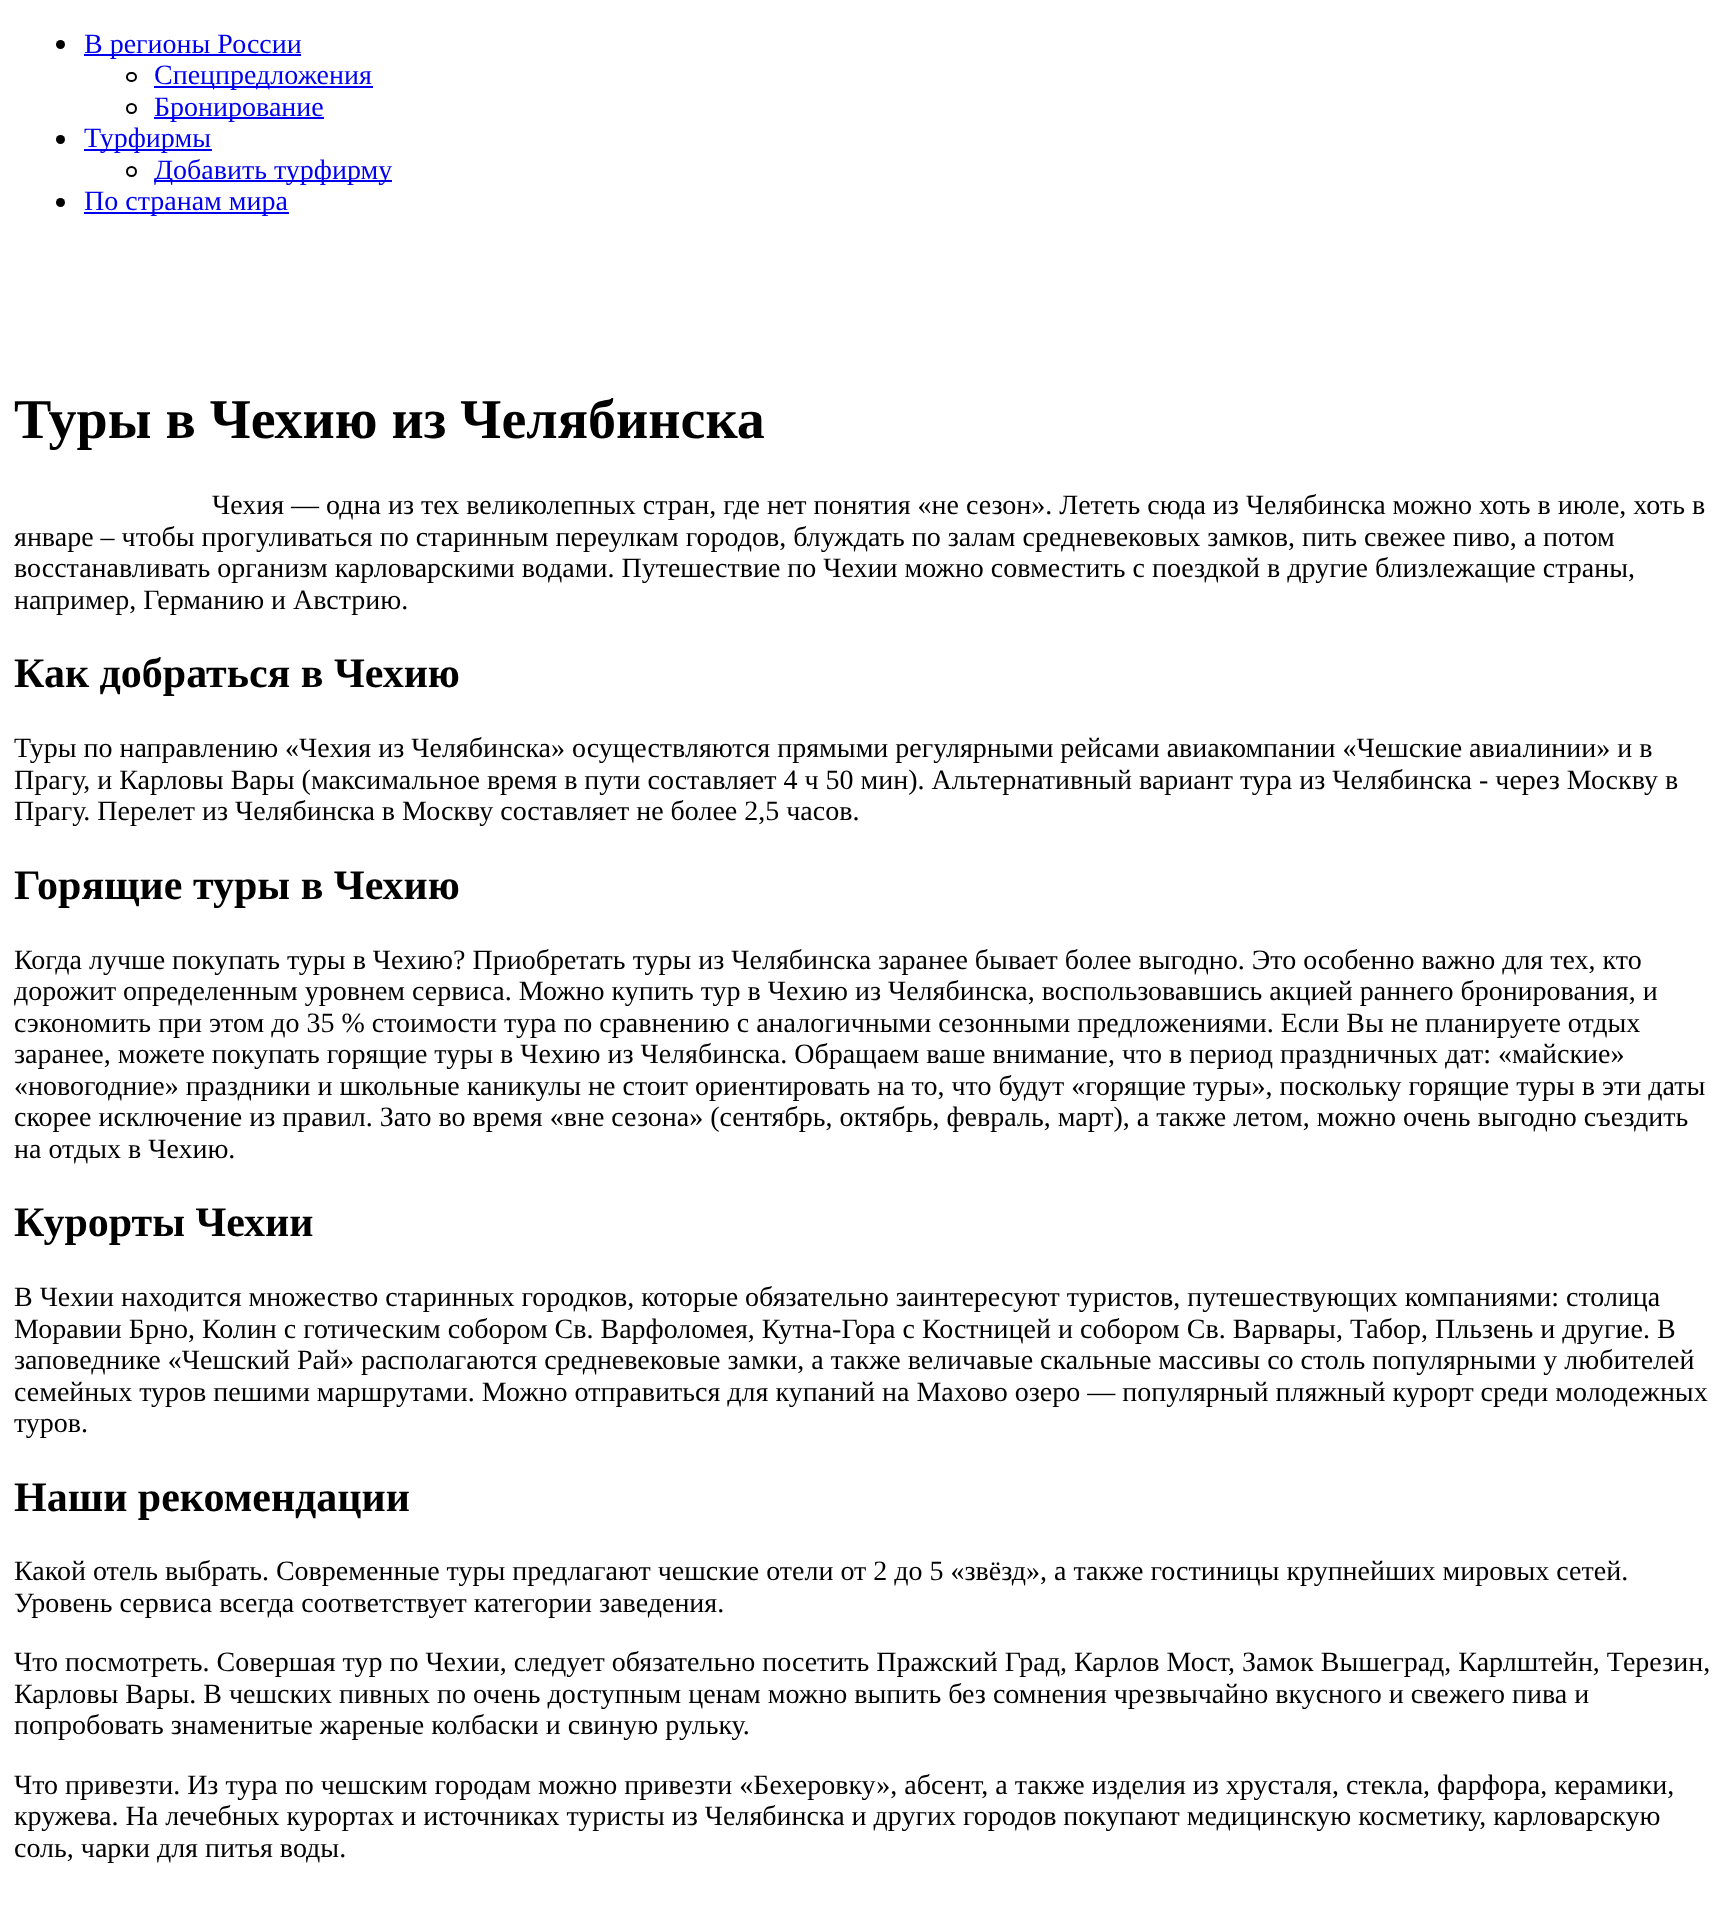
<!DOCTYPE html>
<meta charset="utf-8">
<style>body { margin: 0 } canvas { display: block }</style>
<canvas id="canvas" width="1729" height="1907"></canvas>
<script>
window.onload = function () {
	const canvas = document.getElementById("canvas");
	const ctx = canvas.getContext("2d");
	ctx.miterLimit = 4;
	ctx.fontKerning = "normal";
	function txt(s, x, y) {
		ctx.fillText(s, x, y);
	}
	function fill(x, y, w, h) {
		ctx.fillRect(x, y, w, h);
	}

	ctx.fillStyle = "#FFFFFF";
	fill(0, 0, 1729, 1907);
	ctx.fillStyle = "#000000";
	ctx.beginPath();
	ctx.arc(60.5, 44.5, 4.5, 0, Math.PI * 2);
	ctx.fill();
	ctx.fillStyle = "#0000EE";
	fill(84, 54, 217, 2);
	ctx.beginPath();
	ctx.roundRect(127, 73, 9, 8, 4);
	ctx.strokeStyle = "#000000";
	ctx.lineWidth = 2;
	ctx.stroke();
	fill(154, 86, 219, 2);
	ctx.beginPath();
	ctx.arc(131.5, 108.5, 4.5, 0, Math.PI * 2);
	ctx.stroke();
	fill(154, 117, 170, 2);
	ctx.fillStyle = "#000000";
	ctx.beginPath();
	ctx.arc(60.5, 139.5, 4.5, 0, Math.PI * 2);
	ctx.fill();
	ctx.fillStyle = "#0000EE";
	fill(84, 149, 128, 2);
	ctx.beginPath();
	ctx.arc(131.5, 171.5, 4.5, 0, Math.PI * 2);
	ctx.stroke();
	fill(154, 180, 238, 2);
	ctx.fillStyle = "#000000";
	ctx.beginPath();
	ctx.arc(60.5, 202.5, 4.5, 0, Math.PI * 2);
	ctx.fill();
	ctx.fillStyle = "#0000EE";
	fill(84, 212, 205, 2);
	ctx.font = "28px Liberation Serif";
	txt("В регионы России", 84, 53);
	txt("Спецпредложения", 154, 84);
	txt("Бронирование", 154, 116);
	txt("Турфирмы", 84, 147);
	txt("Добавить турфирму", 154, 179);
	txt("По странам мира", 84, 210);
	ctx.font = "bold 56px Liberation Serif";
	ctx.fillStyle = "#000000";
	txt("Туры в Чехию из Челябинска", 14, 438);
	ctx.font = "28px Liberation Serif";
	txt("Чехия — одна из тех великолепных стран, где нет понятия «не сезон». Лететь сюда из Челябинска можно хоть в июле, хоть в", 212, 514);
	txt("январе – чтобы прогуливаться по старинным переулкам городов, блуждать по залам средневековых замков, пить свежее пиво, а потом", 14, 546);
	txt("восстанавливать организм карловарскими водами. Путешествие по Чехии можно совместить с поездкой в другие близлежащие страны,", 14, 577);
	txt("например, Германию и Австрию.", 14, 609);
	ctx.font = "bold 42px Liberation Serif";
	txt("Как добраться в Чехию", 14, 687);
	ctx.font = "28px Liberation Serif";
	txt("Туры по направлению «Чехия из Челябинска» осуществляются прямыми регулярными рейсами авиакомпании «Чешские авиалинии» и в", 14, 757);
	txt("Прагу, и Карловы Вары (максимальное время в пути составляет 4 ч 50 мин). Альтернативный вариант тура из Челябинска - через Москву в", 14, 789);
	txt("Прагу. Перелет из Челябинска в Москву составляет не более 2,5 часов.", 14, 820);
	ctx.font = "bold 42px Liberation Serif";
	txt("Горящие туры в Чехию", 14, 899);
	ctx.font = "28px Liberation Serif";
	txt("Когда лучше покупать туры в Чехию? Приобретать туры из Челябинска заранее бывает более выгодно. Это особенно важно для тех, кто", 14, 969);
	txt("дорожит определенным уровнем сервиса. Можно купить тур в Чехию из Челябинска, воспользовавшись акцией раннего бронирования, и", 14, 1000);
	txt("сэкономить при этом до 35 % стоимости тура по сравнению с аналогичными сезонными предложениями. Если Вы не планируете отдых", 14, 1032);
	txt("заранее, можете покупать горящие туры в Чехию из Челябинска. Обращаем ваше внимание, что в период праздничных дат: «майские»", 14, 1063);
	txt("«новогодние» праздники и школьные каникулы не стоит ориентировать на то, что будут «горящие туры», поскольку горящие туры в эти даты", 14, 1095);
	txt("скорее исключение из правил. Зато во время «вне сезона» (сентябрь, октябрь, февраль, март), а также летом, можно очень выгодно съездить", 14, 1126);
	txt("на отдых в Чехию.", 14, 1158);
	ctx.font = "bold 42px Liberation Serif";
	txt("Курорты Чехии", 14, 1236);
	ctx.font = "28px Liberation Serif";
	txt("В Чехии находится множество старинных городков, которые обязательно заинтересуют туристов, путешествующих компаниями: столица", 14, 1306);
	txt("Моравии Брно, Колин с готическим собором Св. Варфоломея, Кутна-Гора с Костницей и собором Св. Варвары, Табор, Пльзень и другие. В", 14, 1338);
	txt("заповеднике «Чешский Рай» располагаются средневековые замки, а также величавые скальные массивы со столь популярными у любителей", 14, 1369);
	txt("семейных туров пешими маршрутами. Можно отправиться для купаний на Махово озеро — популярный пляжный курорт среди молодежных", 14, 1401);
	txt("туров.", 14, 1432);
	ctx.font = "bold 42px Liberation Serif";
	txt("Наши рекомендации", 14, 1511);
	ctx.font = "28px Liberation Serif";
	txt("Какой отель выбрать. Современные туры предлагают чешские отели от 2 до 5 «звёзд», а также гостиницы крупнейших мировых сетей.", 14, 1580);
	txt("Уровень сервиса всегда соответствует категории заведения.", 14, 1612);
	txt("Что посмотреть. Совершая тур по Чехии, следует обязательно посетить Пражский Град, Карлов Мост, Замок Вышеград, Карлштейн, Терезин,", 14, 1671);
	txt("Карловы Вары. В чешских пивных по очень доступным ценам можно выпить без сомнения чрезвычайно вкусного и свежего пива и", 14, 1703);
	txt("попробовать знаменитые жареные колбаски и свиную рульку.", 14, 1734);
	txt("Что привезти. Из тура по чешским городам можно привезти «Бехеровку», абсент, а также изделия из хрусталя, стекла, фарфора, керамики,", 14, 1794);
	txt("кружева. На лечебных курортах и источниках туристы из Челябинска и других городов покупают медицинскую косметику, карловарскую", 14, 1825);
	txt("соль, чарки для питья воды.", 14, 1857);
};
</script>
